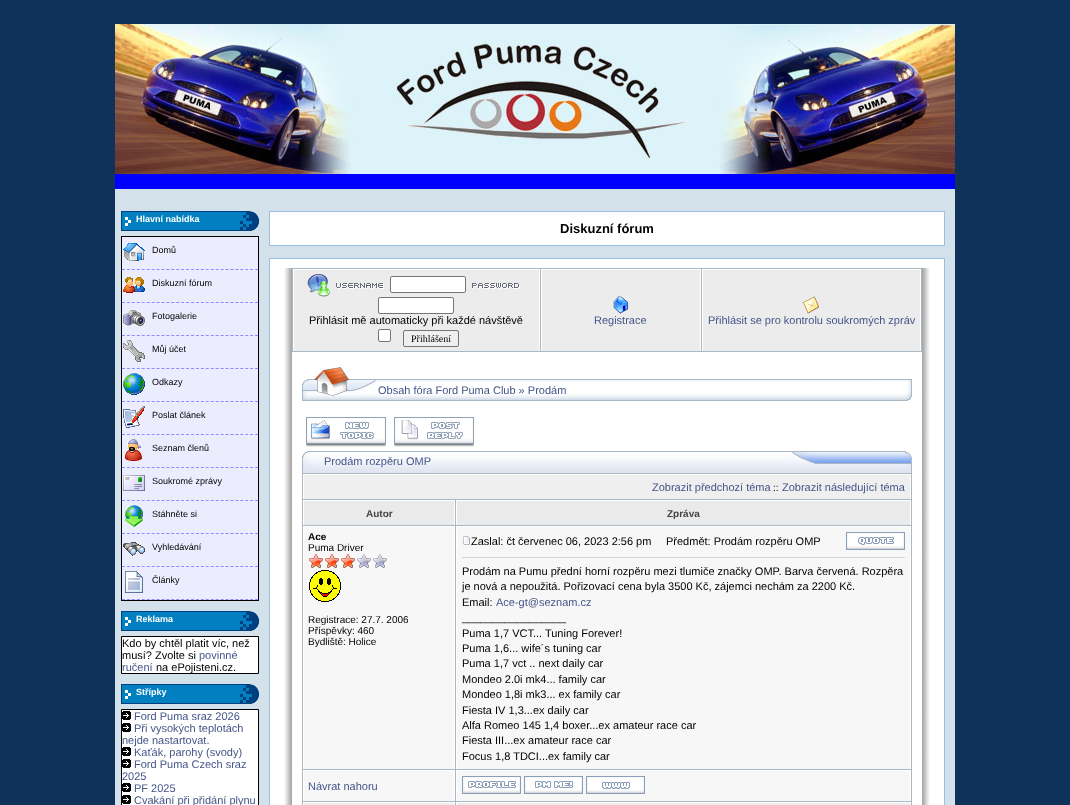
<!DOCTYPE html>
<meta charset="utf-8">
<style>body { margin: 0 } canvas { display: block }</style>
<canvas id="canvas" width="1070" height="805"></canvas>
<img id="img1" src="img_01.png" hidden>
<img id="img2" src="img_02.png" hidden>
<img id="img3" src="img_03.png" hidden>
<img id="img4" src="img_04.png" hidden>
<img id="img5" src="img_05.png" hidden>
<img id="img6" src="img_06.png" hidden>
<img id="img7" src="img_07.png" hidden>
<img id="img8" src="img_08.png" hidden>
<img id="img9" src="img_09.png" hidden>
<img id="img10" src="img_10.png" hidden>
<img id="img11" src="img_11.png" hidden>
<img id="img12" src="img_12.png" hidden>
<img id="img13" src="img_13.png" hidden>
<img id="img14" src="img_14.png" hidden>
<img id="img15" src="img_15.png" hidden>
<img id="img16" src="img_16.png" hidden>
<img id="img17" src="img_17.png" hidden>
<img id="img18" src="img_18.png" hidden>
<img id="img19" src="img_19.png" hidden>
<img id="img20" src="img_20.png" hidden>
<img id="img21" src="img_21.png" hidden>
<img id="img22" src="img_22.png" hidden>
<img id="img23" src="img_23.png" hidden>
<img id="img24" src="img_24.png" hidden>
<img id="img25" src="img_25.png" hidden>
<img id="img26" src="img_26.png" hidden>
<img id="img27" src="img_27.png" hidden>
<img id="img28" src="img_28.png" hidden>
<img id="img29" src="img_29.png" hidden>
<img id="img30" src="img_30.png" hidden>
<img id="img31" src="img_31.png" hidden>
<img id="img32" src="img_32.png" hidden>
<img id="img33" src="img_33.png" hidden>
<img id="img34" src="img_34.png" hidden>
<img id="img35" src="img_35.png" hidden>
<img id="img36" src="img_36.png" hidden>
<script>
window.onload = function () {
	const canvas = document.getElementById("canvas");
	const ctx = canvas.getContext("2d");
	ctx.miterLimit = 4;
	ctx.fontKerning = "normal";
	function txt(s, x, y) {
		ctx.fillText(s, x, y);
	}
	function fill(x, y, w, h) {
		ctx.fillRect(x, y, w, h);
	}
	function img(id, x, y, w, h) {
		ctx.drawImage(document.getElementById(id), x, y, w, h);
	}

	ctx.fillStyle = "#0E3259";
	fill(0, 0, 1070, 805);
	img("img1", 115, 24, 840, 150);
	ctx.fillStyle = "#0000FF";
	fill(115, 174, 840, 15);
	ctx.fillStyle = "#D3E2EA";
	fill(115, 189, 840, 616);
	img("img2", 121, 211, 138, 20);
	ctx.strokeStyle = "#000000";
	ctx.strokeRect(121.5, 236.5, 137, 364);
	ctx.fillStyle = "#ECECFF";
	fill(122, 237, 136, 363);
	ctx.beginPath();
	ctx.moveTo(122, 269.5);
	ctx.lineTo(258, 269.5);
	ctx.strokeStyle = "#8C8CFF";
	ctx.setLineDash([3, 1.93]);
	ctx.stroke();
	img("img3", 123, 243, 22, 18);
	ctx.beginPath();
	ctx.moveTo(122, 302.5);
	ctx.lineTo(258, 302.5);
	ctx.stroke();
	img("img4", 123, 277, 22, 16);
	ctx.beginPath();
	ctx.moveTo(122, 335.5);
	ctx.lineTo(258, 335.5);
	ctx.stroke();
	img("img5", 123, 309, 22, 17);
	ctx.beginPath();
	ctx.moveTo(122, 368.5);
	ctx.lineTo(258, 368.5);
	ctx.stroke();
	img("img6", 123, 340, 22, 22);
	ctx.beginPath();
	ctx.moveTo(122, 401.5);
	ctx.lineTo(258, 401.5);
	ctx.stroke();
	img("img7", 123, 373, 22, 22);
	ctx.beginPath();
	ctx.moveTo(122, 434.5);
	ctx.lineTo(258, 434.5);
	ctx.stroke();
	img("img8", 123, 406, 22, 22);
	ctx.beginPath();
	ctx.moveTo(122, 467.5);
	ctx.lineTo(258, 467.5);
	ctx.stroke();
	img("img9", 125, 439, 17, 22);
	ctx.beginPath();
	ctx.moveTo(122, 500.5);
	ctx.lineTo(258, 500.5);
	ctx.stroke();
	img("img10", 123, 475, 22, 16);
	ctx.beginPath();
	ctx.moveTo(122, 533.5);
	ctx.lineTo(258, 533.5);
	ctx.stroke();
	img("img11", 125, 505, 18, 22);
	ctx.beginPath();
	ctx.moveTo(122, 566.5);
	ctx.lineTo(258, 566.5);
	ctx.stroke();
	img("img12", 123, 542, 22, 14);
	ctx.beginPath();
	ctx.moveTo(122, 599.5);
	ctx.lineTo(258, 599.5);
	ctx.stroke();
	img("img13", 125, 571, 18, 22);
	img("img2", 121, 611, 138, 20);
	ctx.fillStyle = "#FFFFFF";
	ctx.beginPath();
	ctx.rect(121.5, 636.5, 137, 37);
	ctx.fill();
	ctx.strokeStyle = "#000000";
	ctx.setLineDash([]);
	ctx.stroke();
	img("img2", 121, 684, 138, 20);
	ctx.beginPath();
	ctx.rect(121.5, 709.5, 137, 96);
	ctx.fill();
	ctx.stroke();
	img("img14", 122, 711, 9, 9);
	img("img14", 122, 723, 9, 9);
	img("img14", 122, 747, 9, 9);
	img("img14", 122, 759, 9, 9);
	img("img14", 122, 783, 9, 9);
	img("img14", 122, 795, 9, 9);
	ctx.fillStyle = "#9CBEE6";
	fill(269, 211, 676, 35);
	ctx.fillStyle = "#FFFFFF";
	fill(270, 212, 674, 33);
	ctx.fillStyle = "#9CBEE6";
	fill(269, 258, 676, 547);
	ctx.fillStyle = "#FFFFFF";
	fill(270, 259, 674, 546);
	img("img15", 284, 268, 8, 537);
	ctx.fillStyle = "#A9B8C2";
	fill(292, 268, 630, 84);
	ctx.fillStyle = "#ECECEC";
	fill(294, 270, 245, 81);
	ctx.fillStyle = "#FFFFFF";
	fill(293, 269, 247, 1);
	fill(539, 269, 1, 82);
	fill(293, 269, 1, 82);
	img("img16", 307, 274, 23, 23);
	img("img17", 336, 283, 48, 6);
	ctx.beginPath();
	ctx.roundRect(390.5, 276.5, 75, 16, 1.5);
	ctx.fill();
	ctx.strokeStyle = "#767676";
	ctx.stroke();
	img("img18", 472, 283, 48, 6);
	ctx.beginPath();
	ctx.roundRect(378.5, 297.5, 75, 16, 1.5);
	ctx.fill();
	ctx.stroke();
	ctx.beginPath();
	ctx.roundRect(378.5, 329.5, 12, 12, 1.5);
	ctx.fill();
	ctx.stroke();
	ctx.fillStyle = "#EFEFEF";
	ctx.beginPath();
	ctx.roundRect(403.5, 330.5, 55, 16, 1.5);
	ctx.fill();
	ctx.stroke();
	ctx.fillStyle = "#ECECEC";
	fill(542, 270, 158, 81);
	ctx.fillStyle = "#FFFFFF";
	fill(541, 269, 160, 1);
	fill(700, 269, 1, 82);
	fill(541, 269, 1, 82);
	img("img19", 613, 296, 16, 18);
	ctx.fillStyle = "#ECECEC";
	fill(703, 270, 217, 81);
	ctx.fillStyle = "#FFFFFF";
	fill(702, 269, 219, 1);
	fill(920, 269, 1, 82);
	fill(702, 269, 1, 82);
	img("img20", 802, 296, 17, 18);
	img("img21", 302, 367, 76, 34);
	img("img22", 378, 379, 495, 22);
	img("img23", 873, 379, 39, 22);
	img("img24", 306, 417, 80, 30);
	img("img25", 394, 417, 80, 30);
	img("img26", 302, 451, 22, 22);
	img("img27", 324, 451, 464, 22);
	img("img28", 788, 451, 124, 22);
	ctx.fillStyle = "#A9B8C2";
	fill(302, 473, 610, 332);
	ctx.fillStyle = "#EFEFEF";
	fill(304, 475, 606, 24);
	ctx.fillStyle = "#FFFFFF";
	fill(303, 474, 608, 1);
	fill(910, 474, 1, 25);
	fill(303, 474, 1, 25);
	ctx.fillStyle = "#EAEAEA";
	fill(304, 501, 150, 24);
	ctx.fillStyle = "#FFFFFF";
	fill(303, 500, 152, 1);
	fill(454, 500, 1, 25);
	fill(303, 500, 1, 25);
	ctx.fillStyle = "#EAEAEA";
	fill(457, 501, 453, 24);
	ctx.fillStyle = "#FFFFFF";
	fill(456, 500, 455, 1);
	fill(910, 500, 1, 25);
	fill(456, 500, 1, 25);
	ctx.fillStyle = "#F7F7F7";
	fill(304, 527, 150, 242);
	ctx.fillStyle = "#FFFFFF";
	fill(303, 526, 152, 1);
	fill(454, 526, 1, 243);
	fill(303, 526, 1, 243);
	img("img29", 309, 554, 78, 14);
	img("img30", 309, 570, 32, 32);
	ctx.fillStyle = "#F7F7F7";
	fill(457, 527, 453, 242);
	ctx.fillStyle = "#FFFFFF";
	fill(456, 526, 455, 1);
	fill(910, 526, 1, 243);
	fill(456, 526, 1, 243);
	img("img31", 463, 536, 7, 9);
	img("img32", 846, 532, 59, 18);
	ctx.fillStyle = "#D1D7DC";
	fill(462, 557, 443, 1);
	ctx.fillStyle = "#F7F7F7";
	fill(304, 771, 150, 30);
	ctx.fillStyle = "#FFFFFF";
	fill(303, 770, 152, 1);
	fill(454, 770, 1, 31);
	fill(303, 770, 1, 31);
	ctx.fillStyle = "#F7F7F7";
	fill(457, 771, 453, 30);
	ctx.fillStyle = "#FFFFFF";
	fill(456, 770, 455, 1);
	fill(910, 770, 1, 31);
	fill(456, 770, 1, 31);
	img("img33", 462, 776, 59, 18);
	img("img34", 524, 776, 59, 18);
	img("img35", 586, 776, 59, 18);
	ctx.fillStyle = "#ECECEC";
	fill(304, 803, 150, 2);
	ctx.fillStyle = "#FFFFFF";
	fill(303, 802, 152, 1);
	fill(454, 802, 1, 3);
	fill(303, 802, 1, 3);
	ctx.fillStyle = "#ECECEC";
	fill(457, 803, 453, 2);
	ctx.fillStyle = "#FFFFFF";
	fill(456, 802, 455, 1);
	fill(910, 802, 1, 3);
	fill(456, 802, 1, 3);
	img("img36", 922, 268, 8, 537);
	ctx.font = "bold 9px Liberation Sans";
	txt("Hlavní nabídka", 136, 222);
	ctx.font = "9px Liberation Sans";
	ctx.fillStyle = "#000000";
	txt("Domů", 152, 253);
	txt("Diskuzní fórum", 152, 286);
	txt("Fotogalerie", 152, 319);
	txt("Můj účet", 152, 352);
	txt("Odkazy", 152, 385);
	txt("Poslat článek", 152, 418);
	txt("Seznam členů", 152, 451);
	txt("Soukromé zprávy", 152, 484);
	txt("Stáhněte si", 152, 517);
	txt("Vyhledávání", 152, 550);
	txt("Články", 152, 583);
	ctx.font = "bold 9px Liberation Sans";
	ctx.fillStyle = "#FFFFFF";
	txt("Reklama", 136, 622);
	ctx.font = "11px Liberation Sans";
	ctx.fillStyle = "#000000";
	txt("Kdo by chtěl platit víc, než", 122, 647);
	txt("musí? Zvolte si", 122, 659);
	ctx.fillStyle = "#445588";
	txt("povinné", 199, 659);
	txt("ručení", 122, 671);
	ctx.fillStyle = "#000000";
	txt("na ePojisteni.cz.", 156, 671);
	ctx.font = "bold 9px Liberation Sans";
	ctx.fillStyle = "#FFFFFF";
	txt("Střípky", 136, 695);
	ctx.font = "11px Liberation Sans";
	ctx.fillStyle = "#445588";
	txt("Ford Puma sraz 2026", 134, 720);
	txt("Při vysokých teplotách", 134, 732);
	txt("nejde nastartovat.", 122, 744);
	txt("Kaťák, parohy (svody)", 134, 756);
	txt("Ford Puma Czech sraz", 134, 768);
	txt("2025", 122, 780);
	txt("PF 2025", 134, 792);
	txt("Cvakání při přidání plynu", 134, 804);
	ctx.font = "bold 13px Liberation Sans";
	ctx.fillStyle = "#000000";
	txt("Diskuzní fórum", 560, 233);
	ctx.font = "11px Liberation Sans";
	txt("Přihlásit mě automaticky při každé návštěvě", 309, 324);
	ctx.font = "10px Liberation Serif";
	txt("Přihlášení", 411, 342);
	ctx.font = "11px Liberation Sans";
	ctx.fillStyle = "#445588";
	txt("Registrace", 594, 324);
	txt("Přihlásit se pro kontrolu soukromých zpráv", 708, 324);
	txt("Obsah fóra Ford Puma Club » Prodám", 378, 394);
	txt("Prodám rozpěru OMP", 324, 465);
	txt("Zobrazit předchozí téma", 652, 491);
	ctx.font = "10px Liberation Sans";
	ctx.fillStyle = "#000000";
	txt("::", 773, 491);
	ctx.font = "11px Liberation Sans";
	ctx.fillStyle = "#445588";
	txt("Zobrazit následující téma", 782, 491);
	ctx.font = "bold 10px Liberation Sans";
	ctx.fillStyle = "#444444";
	txt("Autor", 366, 517);
	txt("Zpráva", 667, 517);
	ctx.fillStyle = "#000000";
	txt("Ace", 308, 540);
	ctx.font = "10px Liberation Sans";
	txt("Puma Driver", 308, 551);
	txt("Registrace: 27.7. 2006", 308, 623);
	txt("Příspěvky: 460", 308, 634);
	txt("Bydliště: Holice", 308, 645);
	ctx.font = "11px Liberation Sans";
	txt("Zaslal: čt červenec 06, 2023 2:56 pm", 471, 545);
	txt("Předmět: Prodám rozpěru OMP", 666, 545);
	txt("Prodám na Pumu přední horní rozpěru mezi tlumiče značky OMP. Barva červená. Rozpěra", 462, 575);
	txt("je nová a nepoužitá. Pořizovací cena byla 3500 Kč, zájemci nechám za 2200 Kč.", 462, 590);
	txt("Email:", 462, 606);
	ctx.fillStyle = "#445588";
	txt("Ace-gt@seznam.cz", 496, 606);
	ctx.fillStyle = "#000000";
	txt("_________________", 462, 621);
	txt("Puma 1,7 VCT... Tuning Forever!", 462, 637);
	txt("Puma 1,6... wife´s tuning car", 462, 652);
	txt("Puma 1,7 vct .. next daily car", 462, 667);
	txt("Mondeo 2.0i mk4... family car", 462, 683);
	txt("Mondeo 1,8i mk3... ex family car", 462, 698);
	txt("Fiesta IV 1,3...ex daily car", 462, 714);
	txt("Alfa Romeo 145 1,4 boxer...ex amateur race car", 462, 729);
	txt("Fiesta III...ex amateur race car", 462, 744);
	txt("Focus 1,8 TDCI...ex family car", 462, 760);
	ctx.fillStyle = "#445588";
	txt("Návrat nahoru", 308, 790);
};
</script>
